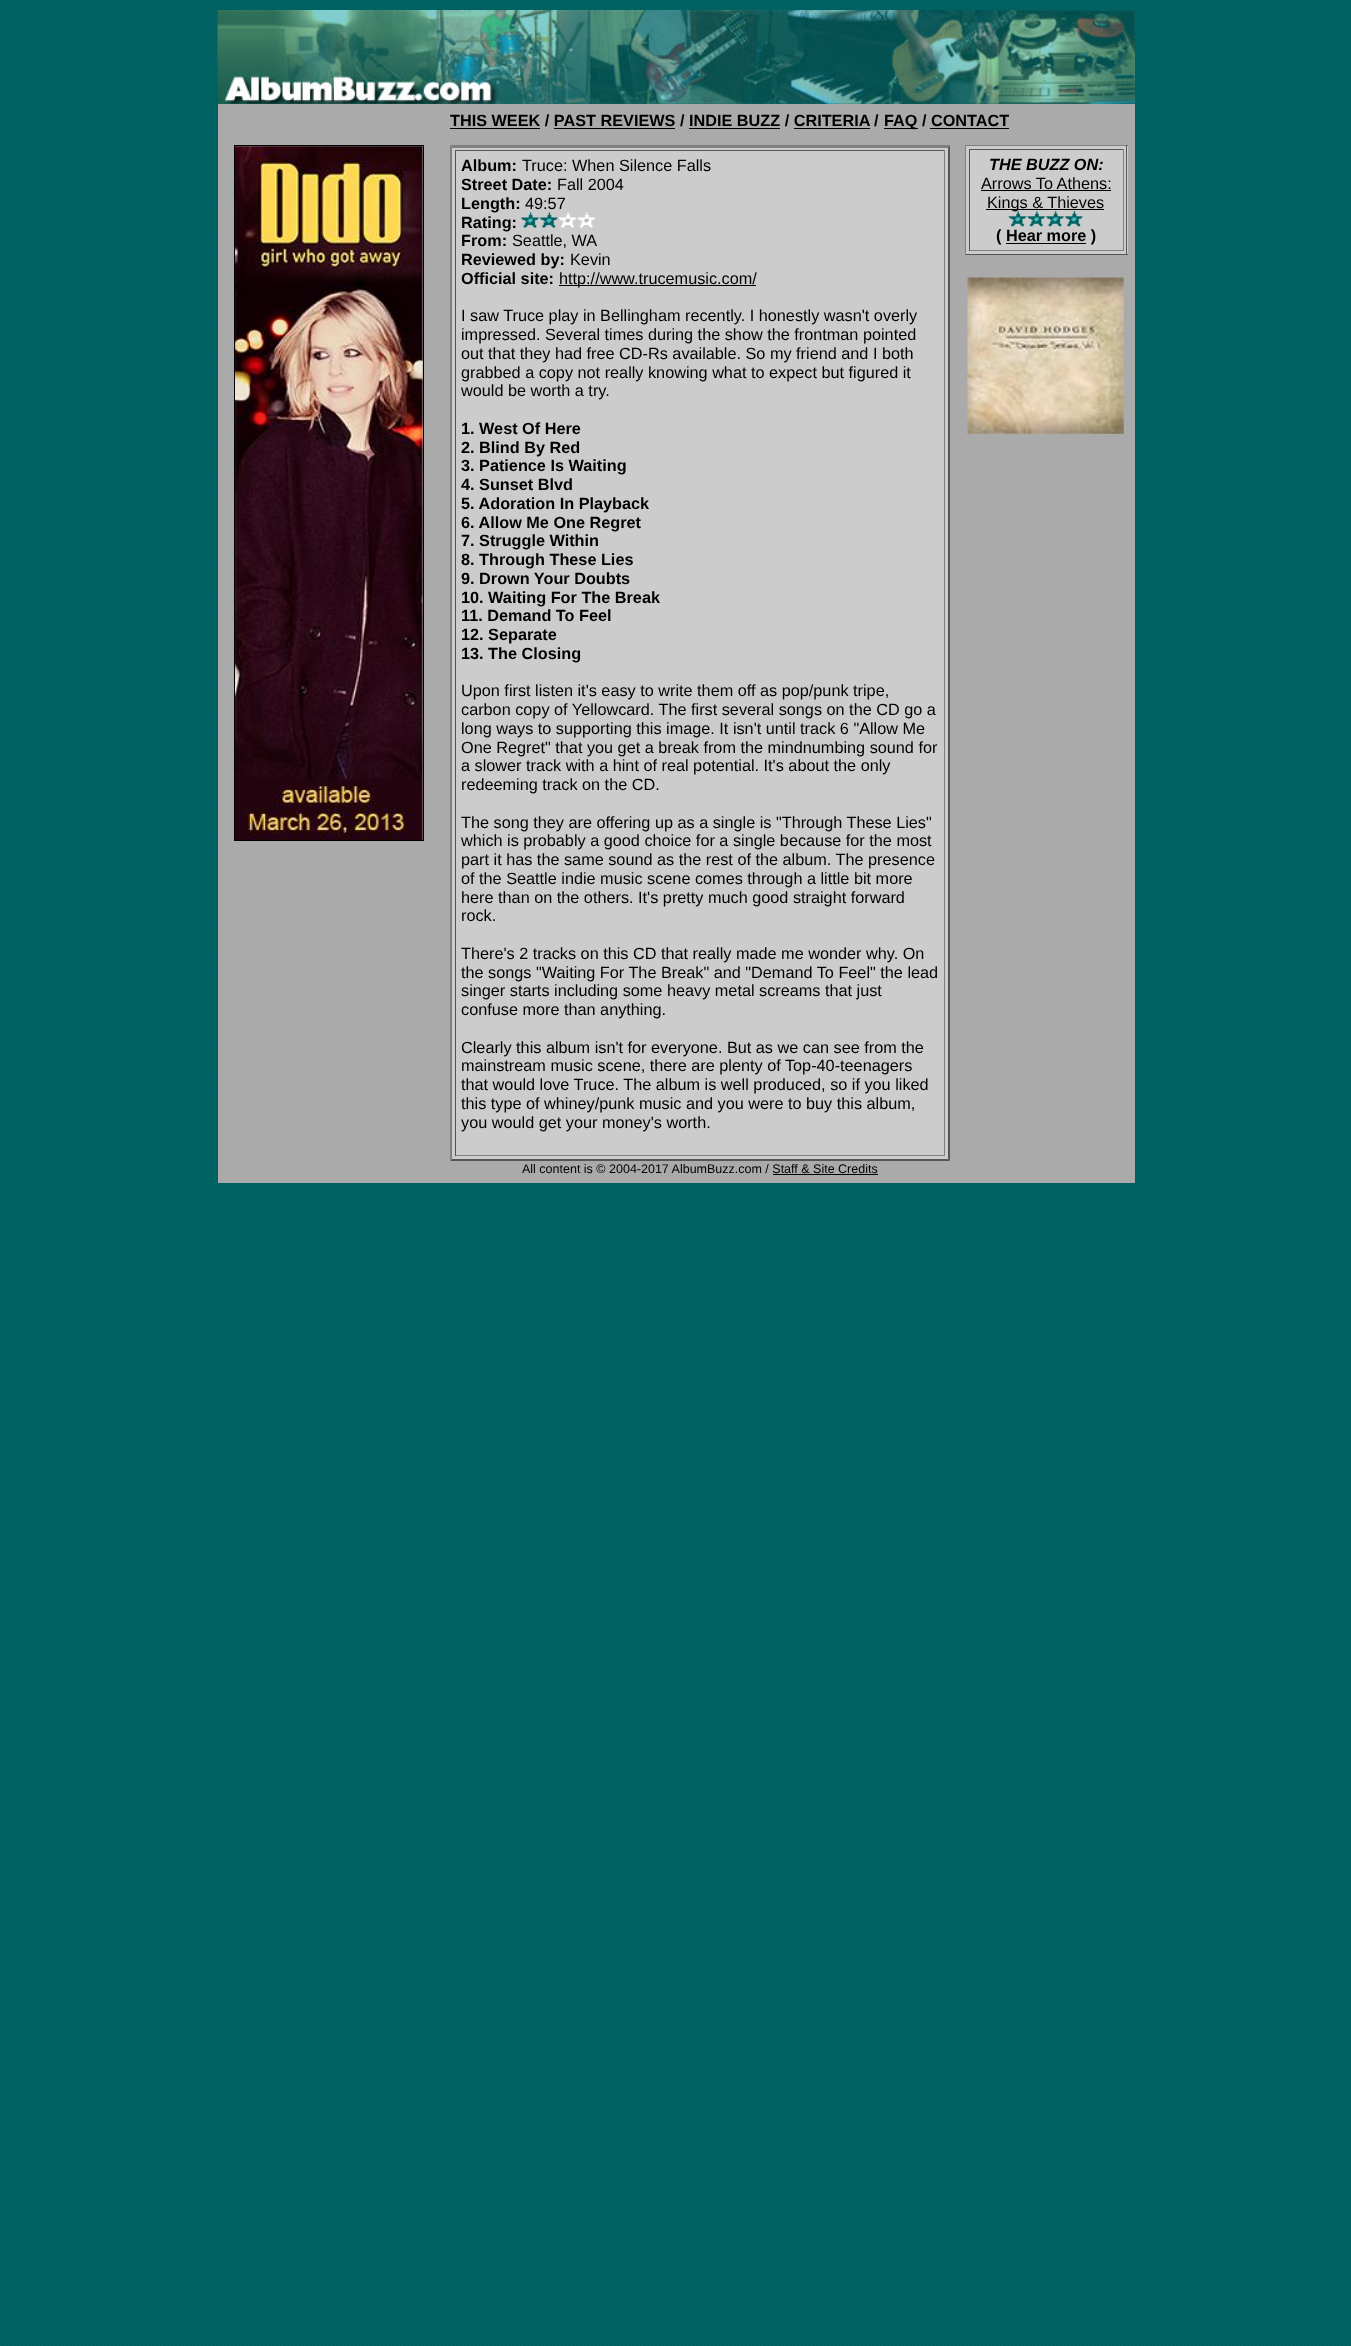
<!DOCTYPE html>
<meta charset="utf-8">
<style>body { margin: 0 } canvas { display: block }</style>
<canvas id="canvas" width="1351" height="2346"></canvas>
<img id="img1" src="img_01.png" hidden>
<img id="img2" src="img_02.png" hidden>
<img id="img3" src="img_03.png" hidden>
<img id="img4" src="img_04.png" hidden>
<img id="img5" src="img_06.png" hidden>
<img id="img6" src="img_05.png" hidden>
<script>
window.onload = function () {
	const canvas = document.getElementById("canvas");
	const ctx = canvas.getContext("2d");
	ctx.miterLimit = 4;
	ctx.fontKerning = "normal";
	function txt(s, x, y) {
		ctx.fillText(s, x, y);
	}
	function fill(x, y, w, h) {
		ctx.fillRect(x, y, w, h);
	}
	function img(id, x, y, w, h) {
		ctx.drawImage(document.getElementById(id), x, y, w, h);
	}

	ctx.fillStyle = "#FFFFFF";
	fill(0, 0, 1351, 2346);
	img("img1", 0, 0, 1351, 2346);
	img("img2", 217, 10, 918, 94);
	ctx.fillStyle = "#AAAAAA";
	fill(218, 104, 917, 1079);
	ctx.fillStyle = "#000000";
	fill(450, 128, 90, 1);
	fill(554, 128, 121, 1);
	fill(689, 128, 91, 1);
	fill(794, 128, 76, 1);
	fill(884, 128, 34, 1);
	fill(930, 128, 79, 1);
	ctx.strokeStyle = "#000000";
	ctx.strokeRect(234.5, 145.5, 189, 695);
	img("img3", 235, 146, 188, 694);
	ctx.fillStyle = "#CCCCCC";
	fill(450, 145, 500, 1016);
	ctx.fillStyle = "#808080";
	ctx.beginPath();
	ctx.moveTo(450, 145);
	ctx.lineTo(950, 145);
	ctx.lineTo(948, 148);
	ctx.lineTo(452, 148);
	ctx.closePath();
	ctx.fill();
	ctx.fillStyle = "#555555";
	ctx.beginPath();
	ctx.moveTo(950, 145);
	ctx.lineTo(950, 1161);
	ctx.lineTo(948, 1159);
	ctx.lineTo(948, 148);
	ctx.closePath();
	ctx.fill();
	ctx.beginPath();
	ctx.moveTo(950, 1161);
	ctx.lineTo(450, 1161);
	ctx.lineTo(452, 1159);
	ctx.lineTo(948, 1159);
	ctx.closePath();
	ctx.fill();
	ctx.fillStyle = "#808080";
	ctx.beginPath();
	ctx.moveTo(450, 1161);
	ctx.lineTo(450, 145);
	ctx.lineTo(452, 148);
	ctx.lineTo(452, 1159);
	ctx.closePath();
	ctx.fill();
	ctx.fillStyle = "#555555";
	fill(455, 150, 490, 1);
	ctx.fillStyle = "#808080";
	fill(944, 150, 1, 1006);
	fill(455, 1155, 490, 1);
	ctx.fillStyle = "#555555";
	fill(455, 150, 1, 1006);
	img("img4", 521, 212, 74, 16);
	ctx.fillStyle = "#000000";
	fill(559, 285, 197, 1);
	fill(773, 1174, 105, 1);
	ctx.fillStyle = "#CCCCCC";
	fill(966, 146, 162, 108);
	ctx.fillStyle = "#808080";
	fill(965, 145, 163, 1);
	ctx.fillStyle = "#555555";
	fill(1126, 145, 1, 110);
	fill(965, 254, 163, 1);
	ctx.fillStyle = "#808080";
	fill(965, 145, 1, 110);
	ctx.fillStyle = "#555555";
	fill(969, 149, 155, 1);
	ctx.fillStyle = "#808080";
	fill(1123, 149, 1, 102);
	fill(969, 250, 155, 1);
	ctx.fillStyle = "#555555";
	fill(969, 149, 1, 102);
	ctx.fillStyle = "#000000";
	fill(981, 190, 130, 1);
	fill(986, 209, 118, 1);
	fill(1006, 243, 80, 1);
	img("img5", 967, 277, 157, 157);
	ctx.font = "bold 16.25px Liberation Sans";
	txt("THIS WEEK / PAST REVIEWS / INDIE BUZZ / CRITERIA", 450, 126);
	txt("/", 874, 126);
	txt("FAQ / CONTACT", 884, 126);
	txt("Album:", 461, 171);
	ctx.font = "16.25px Liberation Sans";
	txt("Truce: When Silence Falls", 522, 171);
	ctx.font = "bold 16.25px Liberation Sans";
	txt("Street Date:", 461, 190);
	ctx.font = "16.25px Liberation Sans";
	txt("Fall 2004", 557, 190);
	ctx.font = "bold 16.25px Liberation Sans";
	txt("Length:", 461, 209);
	ctx.font = "16.25px Liberation Sans";
	txt("49:57", 525, 209);
	ctx.font = "bold 16.25px Liberation Sans";
	txt("Rating:", 461, 228);
	txt("From:", 461, 246);
	ctx.font = "16.25px Liberation Sans";
	txt("Seattle, WA", 512, 246);
	ctx.font = "bold 16.25px Liberation Sans";
	txt("Reviewed by:", 461, 265);
	ctx.font = "16.25px Liberation Sans";
	txt("Kevin", 570, 265);
	ctx.font = "bold 16.25px Liberation Sans";
	txt("Official site:", 461, 284);
	ctx.font = "16.25px Liberation Sans";
	txt("http://www.trucemusic.com/", 559, 284);
	txt("I saw Truce play in Bellingham recently. I honestly wasn't overly", 461, 321);
	txt("impressed. Several times during the show the frontman pointed", 461, 340);
	txt("out that they had free CD-Rs available. So my friend and I both", 461, 359);
	txt("grabbed a copy not really knowing what to expect but figured it", 461, 378);
	txt("would be worth a try.", 461, 396);
	ctx.font = "bold 16.25px Liberation Sans";
	txt("1. West Of Here", 461, 434);
	txt("2. Blind By Red", 461, 453);
	txt("3. Patience Is Waiting", 461, 471);
	txt("4. Sunset Blvd", 461, 490);
	txt("5. Adoration In Playback", 461, 509);
	txt("6. Allow Me One Regret", 461, 528);
	txt("7. Struggle Within", 461, 546);
	txt("8. Through These Lies", 461, 565);
	txt("9. Drown Your Doubts", 461, 584);
	txt("10. Waiting For The Break", 461, 603);
	txt("11. Demand To Feel", 461, 621);
	txt("12. Separate", 461, 640);
	txt("13. The Closing", 461, 659);
	ctx.font = "16.25px Liberation Sans";
	txt("Upon first listen it's easy to write them off as pop/punk tripe,", 461, 696);
	txt("carbon copy of Yellowcard. The first several songs on the CD go a", 461, 715);
	txt("long ways to supporting this image. It isn't until track 6 \"Allow Me", 461, 734);
	txt("One Regret\" that you get a break from the mindnumbing sound for", 461, 753);
	txt("a slower track with a hint of real potential. It's about the only", 461, 771);
	txt("redeeming track on the CD.", 461, 790);
	txt("The song they are offering up as a single is \"Through These Lies\"", 461, 828);
	txt("which is probably a good choice for a single because for the most", 461, 846);
	txt("part it has the same sound as the rest of the album. The presence", 461, 865);
	txt("of the Seattle indie music scene comes through a little bit more", 461, 884);
	txt("here than on the others. It's pretty much good straight forward", 461, 903);
	txt("rock.", 461, 921);
	txt("There's 2 tracks on this CD that really made me wonder why. On", 461, 959);
	txt("the songs \"Waiting For The Break\" and \"Demand To Feel\" the lead", 461, 978);
	txt("singer starts including some heavy metal screams that just", 461, 996);
	txt("confuse more than anything.", 461, 1015);
	txt("Clearly this album isn't for everyone. But as we can see from the", 461, 1053);
	txt("mainstream music scene, there are plenty of Top-40-teenagers", 461, 1071);
	txt("that would love Truce. The album is well produced, so if you liked", 461, 1090);
	txt("this type of whiney/punk music and you were to buy this album,", 461, 1109);
	txt("you would get your money's worth.", 461, 1128);
	ctx.font = "12.5px Liberation Sans";
	txt("All content is © 2004-2017 AlbumBuzz.com / Staff & Site Credits", 522, 1173);
	ctx.font = "italic bold 16.25px Liberation Sans";
	txt("THE BUZZ ON:", 989, 170);
	ctx.font = "16.25px Liberation Sans";
	txt("Arrows To Athens:", 981, 189);
	txt("Kings & Thieves", 987, 208);
	img("img6", 1008, 211, 75, 16);
	ctx.font = "bold 16.25px Liberation Sans";
	txt("( Hear more )", 996, 241);
};
</script>
